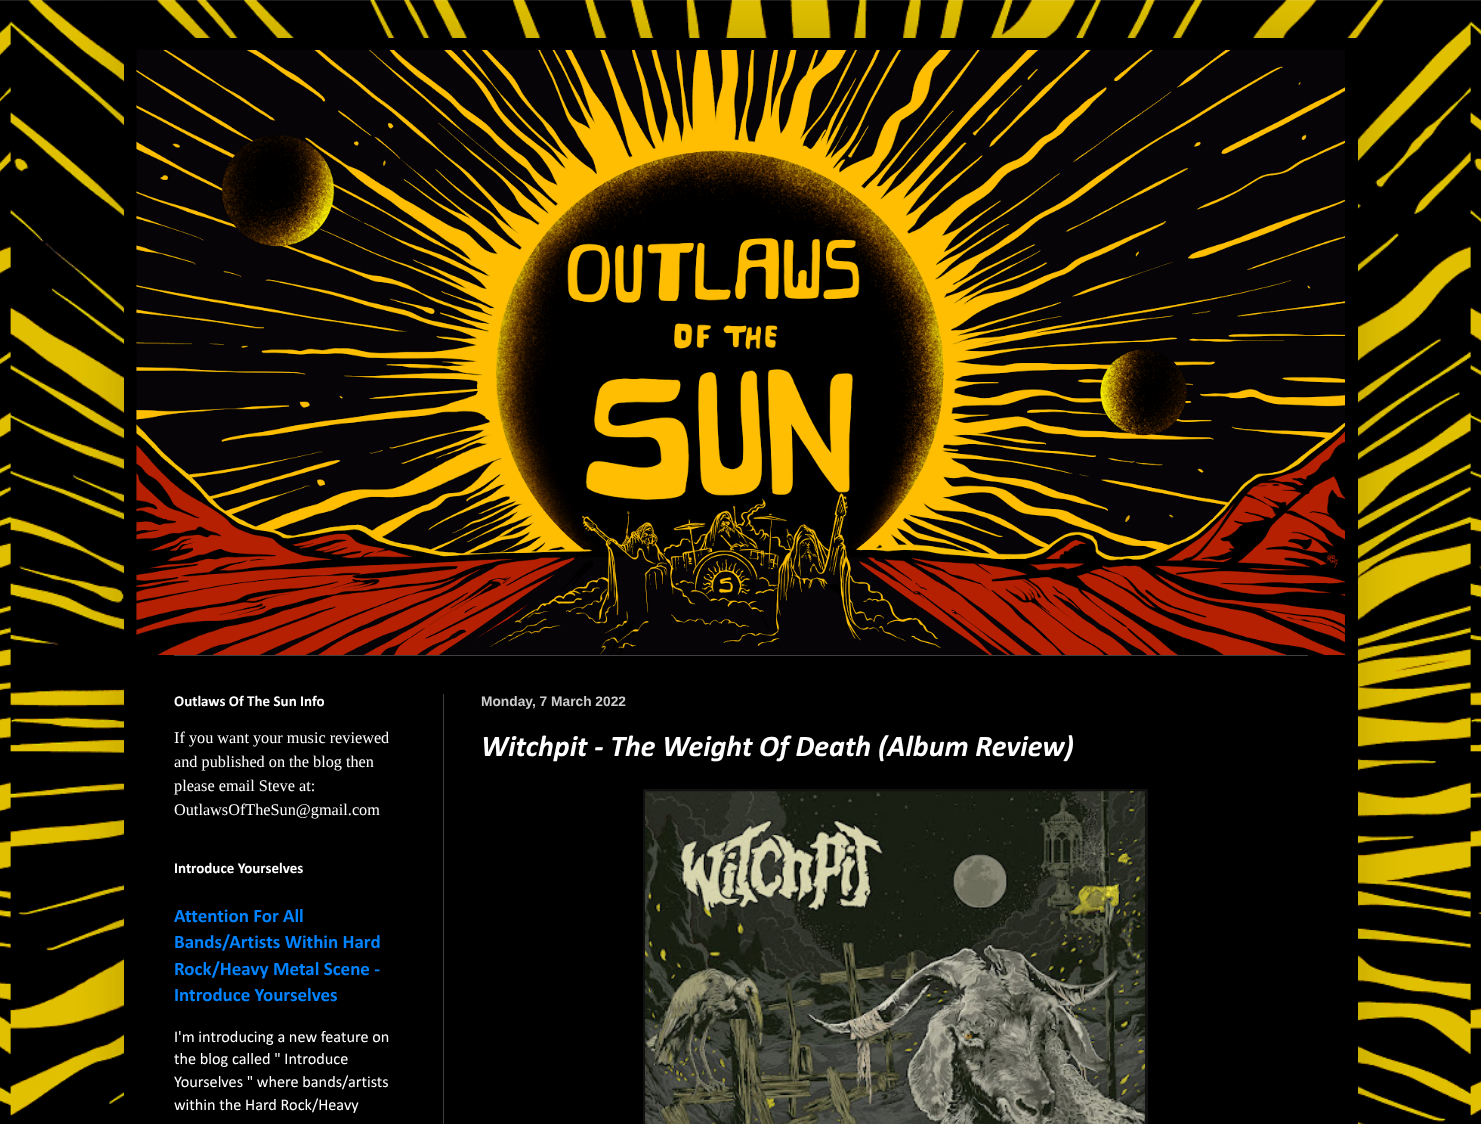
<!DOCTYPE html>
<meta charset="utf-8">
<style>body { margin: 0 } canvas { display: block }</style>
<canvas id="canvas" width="1481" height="1124"></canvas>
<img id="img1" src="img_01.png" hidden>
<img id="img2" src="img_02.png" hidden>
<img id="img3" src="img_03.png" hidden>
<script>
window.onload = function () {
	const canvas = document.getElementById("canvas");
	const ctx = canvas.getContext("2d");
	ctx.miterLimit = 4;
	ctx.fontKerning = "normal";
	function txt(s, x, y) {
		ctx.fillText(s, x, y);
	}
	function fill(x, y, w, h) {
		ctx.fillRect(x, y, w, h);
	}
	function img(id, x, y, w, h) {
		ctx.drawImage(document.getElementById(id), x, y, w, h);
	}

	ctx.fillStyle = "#FFFFFF";
	fill(0, 0, 1481, 1124);
	img("img1", 0, 0, 1481, 1124);
	ctx.fillStyle = "rgba(0, 0, 0, 0.15)";
	ctx.filter = "blur(25px)";
	ctx.beginPath();
	ctx.rect(124, 38, 1234, 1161);
	ctx.fill();
	ctx.filter = "none";
	ctx.fillStyle = "#000000";
	fill(124, 38, 1234, 1086);
	img("img2", 136, 50, 1209, 605);
	ctx.fillStyle = "#404040";
	fill(174, 655, 1134, 1);
	fill(443, 694, 1, 430);
	ctx.fillStyle = "#111111";
	fill(643, 789, 505, 335);
	img("img3", 645, 791, 500, 333);
	ctx.font = "bold 15px Calibri";
	ctx.fillStyle = "#FFFFFF";
	txt("Outlaws Of The Sun Info", 174, 706);
	ctx.font = "16.25px Liberation Serif";
	txt("If you want your music reviewed", 174, 743);
	txt("and published on the blog then", 174, 767);
	txt("please email Steve at:", 174, 791);
	txt("OutlawsOfTheSun@gmail.com", 174, 815);
	ctx.font = "bold 15px Calibri";
	txt("Introduce Yourselves", 174, 873);
	ctx.font = "bold 19px Calibri";
	ctx.fillStyle = "#0083FF";
	txt("Attention For All", 174, 922);
	txt("Bands/Artists Within Hard", 174, 948);
	txt("Rock/Heavy Metal Scene -", 174, 975);
	txt("Introduce Yourselves", 174, 1001);
	ctx.font = "16.25px Calibri";
	ctx.fillStyle = "#FFFFFF";
	txt("I'm introducing a new feature on", 174, 1042);
	txt("the blog called \" Introduce", 174, 1064);
	txt("Yourselves \" where bands/artists", 174, 1087);
	txt("within the Hard Rock/Heavy", 174, 1110);
	ctx.font = "bold 13.75px Liberation Sans";
	ctx.fillStyle = "#CCCCCC";
	txt("Monday, 7 March 2022", 481, 706);
	ctx.font = "italic bold 30px Calibri";
	ctx.fillStyle = "#FFFFFF";
	txt("Witchpit - The Weight Of Death (Album Review)", 481, 756);
};
</script>
